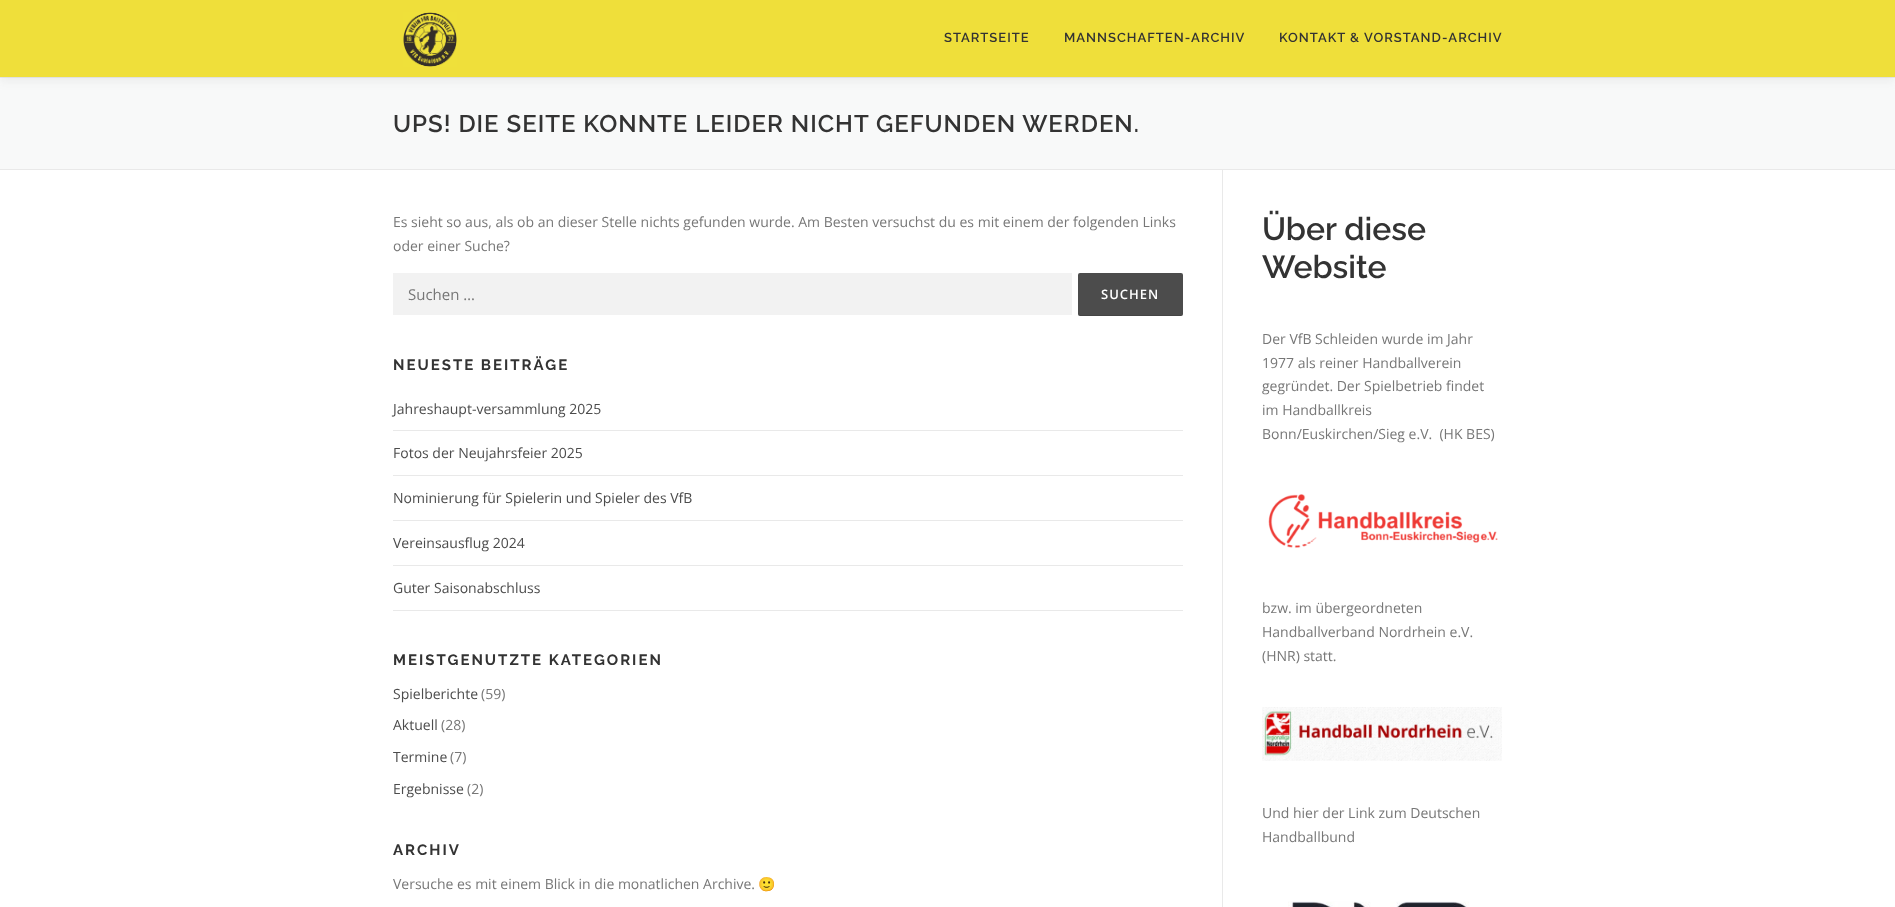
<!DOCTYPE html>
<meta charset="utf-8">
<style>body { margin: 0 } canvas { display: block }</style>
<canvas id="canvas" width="1895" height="907"></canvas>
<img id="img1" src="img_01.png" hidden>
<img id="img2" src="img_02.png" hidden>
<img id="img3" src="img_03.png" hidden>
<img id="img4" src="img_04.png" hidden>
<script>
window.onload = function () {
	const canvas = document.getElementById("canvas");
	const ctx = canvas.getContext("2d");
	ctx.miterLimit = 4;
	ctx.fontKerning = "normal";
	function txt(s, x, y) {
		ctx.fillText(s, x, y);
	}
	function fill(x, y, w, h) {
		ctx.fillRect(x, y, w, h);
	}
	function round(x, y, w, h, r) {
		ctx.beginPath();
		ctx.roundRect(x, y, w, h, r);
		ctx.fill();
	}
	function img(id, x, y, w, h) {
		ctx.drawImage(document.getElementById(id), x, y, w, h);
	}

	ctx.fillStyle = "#FFFFFF";
	fill(0, 0, 1895, 907);
	ctx.fillStyle = "#F8F9F9";
	fill(0, 78, 1895, 91);
	ctx.fillStyle = "#E9E9E9";
	fill(0, 77, 1895, 1);
	ctx.fillStyle = "rgba(50, 50, 50, 0.06)";
	ctx.filter = "blur(5px)";
	ctx.beginPath();
	ctx.rect(0, 5, 1895, 77);
	ctx.fill();
	ctx.filter = "none";
	ctx.fillStyle = "#EFDF3A";
	fill(0, 0, 1895, 77);
	img("img1", 403, 12, 54, 55);
	ctx.fillStyle = "#E9E9E9";
	fill(0, 169, 1895, 1);
	fill(1222, 170, 1, 737);
	ctx.fillStyle = "#F2F2F2";
	fill(393, 273, 679, 42);
	ctx.fillStyle = "#4C4C4C";
	round(1078, 273, 105, 43, 2);
	ctx.fillStyle = "rgba(0, 0, 0, 0.1)";
	ctx.beginPath();
	ctx.moveTo(1078, 313);
	ctx.bezierCurveTo(1078, 314, 1078, 316, 1080, 316);
	ctx.lineTo(1181, 316);
	ctx.bezierCurveTo(1183, 316, 1183, 314, 1183, 313);
	ctx.bezierCurveTo(1183, 314, 1182, 315, 1181, 315);
	ctx.lineTo(1080, 315);
	ctx.bezierCurveTo(1079, 315, 1078, 314, 1078, 313);
	ctx.closePath();
	ctx.fill();
	ctx.fillStyle = "#E9E9E9";
	fill(393, 430, 790, 1);
	fill(393, 475, 790, 1);
	fill(393, 520, 790, 1);
	fill(393, 565, 790, 1);
	fill(393, 610, 790, 1);
	img("img2", 1268, 494, 230, 54);
	img("img3", 1262, 707, 240, 54);
	img("img4", 1288, 901, 181, 6);
	ctx.letterSpacing = "1px";
	ctx.font = "600 13px Raleway";
	ctx.fillStyle = "#333333";
	txt("STARTSEITE", 944, 42);
	txt("MANNSCHAFTEN-ARCHIV", 1064, 42);
	txt("KONTAKT & VORSTAND-ARCHIV", 1279, 42);
	ctx.font = "600 24px Raleway";
	txt("UPS! DIE SEITE KONNTE LEIDER NICHT GEFUNDEN WERDEN.", 393, 132);
	ctx.letterSpacing = "0px";
	ctx.font = "14px Open Sans";
	ctx.fillStyle = "#777777";
	txt("Es sieht so aus, als ob an dieser Stelle nichts gefunden wurde. Am Besten versuchst du es mit einem der folgenden Links", 393, 227);
	txt("oder einer Suche?", 393, 251);
	ctx.font = "15px Open Sans";
	txt("Suchen …", 408, 300);
	ctx.letterSpacing = "1px";
	ctx.font = "600 13px Open Sans";
	ctx.fillStyle = "#FFFFFF";
	txt("SUCHEN", 1101, 299);
	ctx.letterSpacing = "2px";
	ctx.font = "bold 15px Raleway";
	ctx.fillStyle = "#333333";
	txt("NEUESTE BEITRÄGE", 393, 370);
	ctx.letterSpacing = "0px";
	ctx.font = "14px Open Sans";
	ctx.fillStyle = "#4C4C4C";
	txt("Jahreshaupt-versammlung 2025", 393, 414);
	txt("Fotos der Neujahrsfeier 2025", 393, 458);
	txt("Nominierung für Spielerin und Spieler des VfB", 393, 503);
	txt("Vereinsausflug 2024", 393, 548);
	txt("Guter Saisonabschluss", 393, 593);
	ctx.letterSpacing = "2px";
	ctx.font = "bold 15px Raleway";
	ctx.fillStyle = "#333333";
	txt("MEISTGENUTZTE KATEGORIEN", 393, 665);
	ctx.letterSpacing = "0px";
	ctx.font = "14px Open Sans";
	ctx.fillStyle = "#4C4C4C";
	txt("Spielberichte", 393, 699);
	ctx.fillStyle = "#777777";
	txt("(59)", 481, 699);
	ctx.fillStyle = "#4C4C4C";
	txt("Aktuell", 393, 730);
	ctx.fillStyle = "#777777";
	txt("(28)", 441, 730);
	ctx.fillStyle = "#4C4C4C";
	txt("Termine", 393, 762);
	ctx.fillStyle = "#777777";
	txt("(7)", 450, 762);
	ctx.fillStyle = "#4C4C4C";
	txt("Ergebnisse", 393, 794);
	ctx.fillStyle = "#777777";
	txt("(2)", 467, 794);
	ctx.letterSpacing = "2px";
	ctx.font = "bold 15px Raleway";
	ctx.fillStyle = "#333333";
	txt("ARCHIV", 393, 855);
	ctx.letterSpacing = "0px";
	ctx.font = "14px Open Sans";
	ctx.fillStyle = "#777777";
	txt("Versuche es mit einem Blick in die monatlichen Archive.", 393, 889);
	ctx.font = "14px Noto Color Emoji";
	txt("🙂", 758, 889);
	ctx.font = "600 32px Raleway";
	ctx.fillStyle = "#333333";
	txt("Über diese", 1262, 240);
	txt("Website", 1262, 278);
	ctx.font = "14px Open Sans";
	ctx.fillStyle = "#777777";
	txt("Der VfB Schleiden wurde im Jahr", 1262, 344);
	txt("1977 als reiner Handballverein", 1262, 368);
	txt("gegründet. Der Spielbetrieb findet", 1262, 391);
	txt("im Handballkreis", 1262, 415);
	txt("Bonn/Euskirchen/Sieg e.V.  (HK BES)", 1262, 439);
	txt("bzw. im übergeordneten", 1262, 613);
	txt("Handballverband Nordrhein e.V.", 1262, 637);
	txt("(HNR) statt.", 1262, 661);
	txt("Und hier der Link zum Deutschen", 1262, 818);
	txt("Handballbund", 1262, 842);
};
</script>
